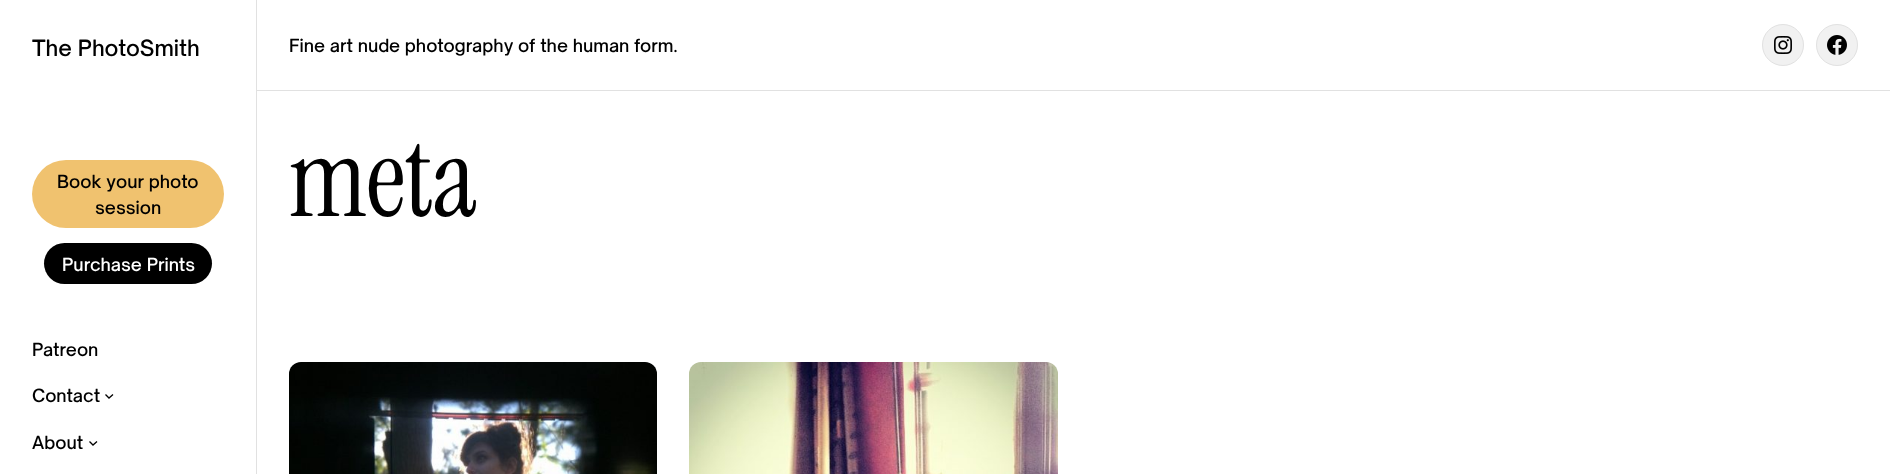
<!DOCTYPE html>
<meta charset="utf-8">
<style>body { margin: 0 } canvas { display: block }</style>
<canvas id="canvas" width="1890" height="474"></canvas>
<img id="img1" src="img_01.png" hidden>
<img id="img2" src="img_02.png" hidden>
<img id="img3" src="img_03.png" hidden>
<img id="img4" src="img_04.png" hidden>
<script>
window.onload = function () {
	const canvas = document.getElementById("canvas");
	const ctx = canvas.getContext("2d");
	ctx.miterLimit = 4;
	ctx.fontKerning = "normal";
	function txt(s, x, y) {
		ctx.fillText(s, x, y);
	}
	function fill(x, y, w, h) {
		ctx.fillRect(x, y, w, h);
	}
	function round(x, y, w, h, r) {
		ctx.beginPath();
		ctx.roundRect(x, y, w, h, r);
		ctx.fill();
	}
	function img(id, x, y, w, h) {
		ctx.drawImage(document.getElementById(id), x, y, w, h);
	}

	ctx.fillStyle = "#FFFFFF";
	fill(0, 0, 1890, 474);
	ctx.fillStyle = "#E1E1E1";
	fill(256, 0, 1, 474);
	ctx.fillStyle = "#F0C26F";
	round(32, 160, 192, 68, 34);
	ctx.fillStyle = "#000000";
	round(44, 243, 168, 41, 20.5);
	ctx.beginPath();
	ctx.moveTo(105.5, 394.5);
	ctx.lineTo(109, 398);
	ctx.lineTo(113, 394.5);
	ctx.strokeStyle = "#000000";
	ctx.lineWidth = 1.3;
	ctx.stroke();
	ctx.beginPath();
	ctx.moveTo(89.5, 441.5);
	ctx.lineTo(93, 445);
	ctx.lineTo(97, 441.5);
	ctx.stroke();
	ctx.fillStyle = "#E1E1E1";
	fill(257, 90, 1633, 1);
	ctx.fillStyle = "#F1F1F1";
	ctx.beginPath();
	ctx.arc(1783, 45, 20.5, 0, Math.PI * 2);
	ctx.fill();
	ctx.strokeStyle = "#E1E1E1";
	ctx.lineWidth = 1;
	ctx.stroke();
	img("img1", 1774, 36, 18, 18);
	ctx.beginPath();
	ctx.arc(1837, 45, 20.5, 0, Math.PI * 2);
	ctx.fill();
	ctx.stroke();
	img("img2", 1827, 35, 20, 20);
	img("img3", 289, 362, 368, 112);
	img("img4", 689, 362, 369, 112);
	ctx.font = "500 21.5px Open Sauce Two";
	ctx.fillStyle = "#000000";
	txt("The PhotoSmith", 32, 56);
	ctx.font = "500 17.4px Open Sauce Two";
	txt("Book your photo", 57, 188);
	txt("session", 95, 214);
	ctx.fillStyle = "#FFFFFF";
	txt("Purchase Prints", 62, 271);
	ctx.fillStyle = "#000000";
	txt("Patreon", 32, 356);
	txt("Contact", 32, 402);
	txt("About", 32, 449);
	txt("Fine art nude photography of the human form.", 289, 52);
	ctx.letterSpacing = "-1px";
	ctx.font = "111px Instrument Serif";
	txt("meta", 289, 216);
};
</script>
